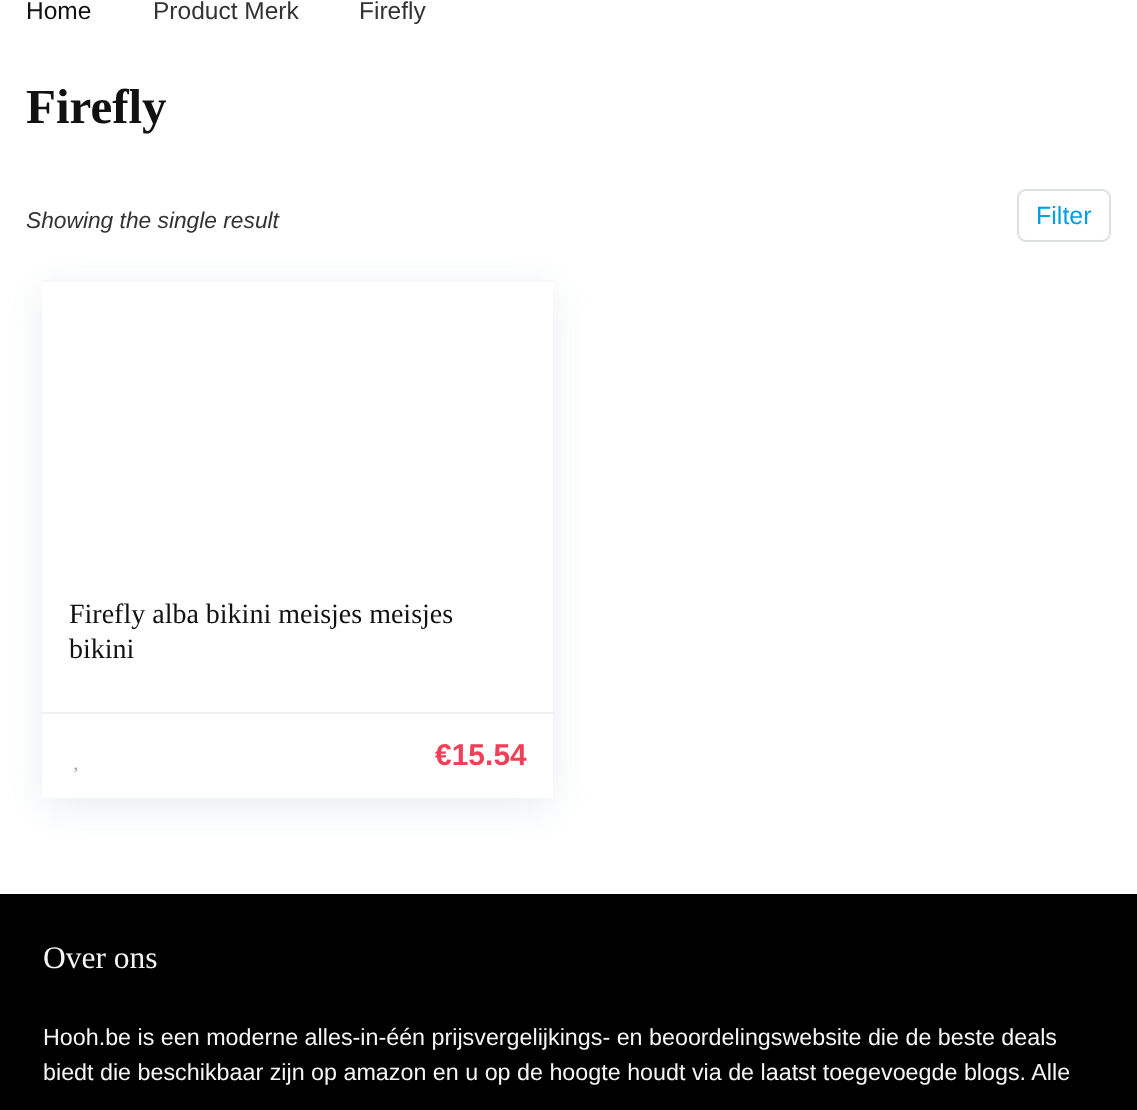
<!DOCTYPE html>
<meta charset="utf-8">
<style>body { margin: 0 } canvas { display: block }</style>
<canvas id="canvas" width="1137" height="1110"></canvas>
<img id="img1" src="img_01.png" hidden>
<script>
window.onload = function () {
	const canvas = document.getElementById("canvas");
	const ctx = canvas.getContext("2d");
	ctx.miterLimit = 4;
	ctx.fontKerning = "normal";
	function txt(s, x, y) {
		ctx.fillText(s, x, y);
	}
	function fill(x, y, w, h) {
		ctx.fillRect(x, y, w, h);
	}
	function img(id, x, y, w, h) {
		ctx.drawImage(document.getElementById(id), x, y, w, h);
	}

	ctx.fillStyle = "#FFFFFF";
	fill(0, 0, 1137, 1110);
	ctx.beginPath();
	ctx.roundRect(1018, 190, 92, 51, 8);
	ctx.strokeStyle = "#DCE0E0";
	ctx.lineWidth = 2;
	ctx.stroke();
	ctx.save();
	ctx.beginPath();
	ctx.moveTo(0, 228);
	ctx.lineTo(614, 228);
	ctx.lineTo(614, 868);
	ctx.lineTo(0, 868);
	ctx.closePath();
	ctx.moveTo(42, 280);
	ctx.lineTo(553, 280);
	ctx.lineTo(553, 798);
	ctx.lineTo(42, 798);
	ctx.closePath();
	ctx.clip("evenodd");
	ctx.fillStyle = "rgba(188, 207, 219, 0.35)";
	ctx.filter = "blur(20px)";
	ctx.beginPath();
	ctx.rect(42, 289, 511, 518);
	ctx.fill();
	ctx.filter = "none";
	ctx.restore();
	ctx.fillStyle = "#F8F8F8";
	fill(42, 280, 511, 2);
	ctx.fillStyle = "#F0F0F0";
	fill(42, 712, 511, 2);
	img("img1", 74, 767, 4, 6);
	ctx.fillStyle = "#000000";
	fill(0, 894, 1137, 216);
	ctx.font = "24.5px Liberation Sans";
	ctx.fillStyle = "#111111";
	txt("Home", 26, 19);
	ctx.fillStyle = "#333333";
	txt("Product Merk", 153, 19);
	txt("Firefly", 359, 19);
	ctx.font = "bold 49px Liberation Serif";
	ctx.fillStyle = "#111111";
	txt("Firefly", 26, 123);
	ctx.font = "italic 22.75px Liberation Sans";
	ctx.fillStyle = "#333333";
	txt("Showing the single result", 26, 228);
	ctx.font = "25px Liberation Sans";
	ctx.fillStyle = "#019FDE";
	txt("Filter", 1036, 224);
	ctx.font = "28px Liberation Serif";
	ctx.fillStyle = "#111111";
	txt("Firefly alba bikini meisjes meisjes", 69, 623);
	txt("bikini", 69, 658);
	ctx.font = "bold 30px Liberation Sans";
	ctx.fillStyle = "#F04057";
	txt("€15.54", 435, 765);
	ctx.font = "31.5px Liberation Serif";
	ctx.fillStyle = "#F5F5F5";
	txt("Over ons", 43, 968);
	ctx.font = "23.3px Liberation Sans";
	txt("Hooh.be is een moderne alles-in-één prijsvergelijkings- en beoordelingswebsite die de beste deals", 43, 1045);
	txt("biedt die beschikbaar zijn op amazon en u op de hoogte houdt via de laatst toegevoegde blogs. Alle", 43, 1080);
};
</script>
